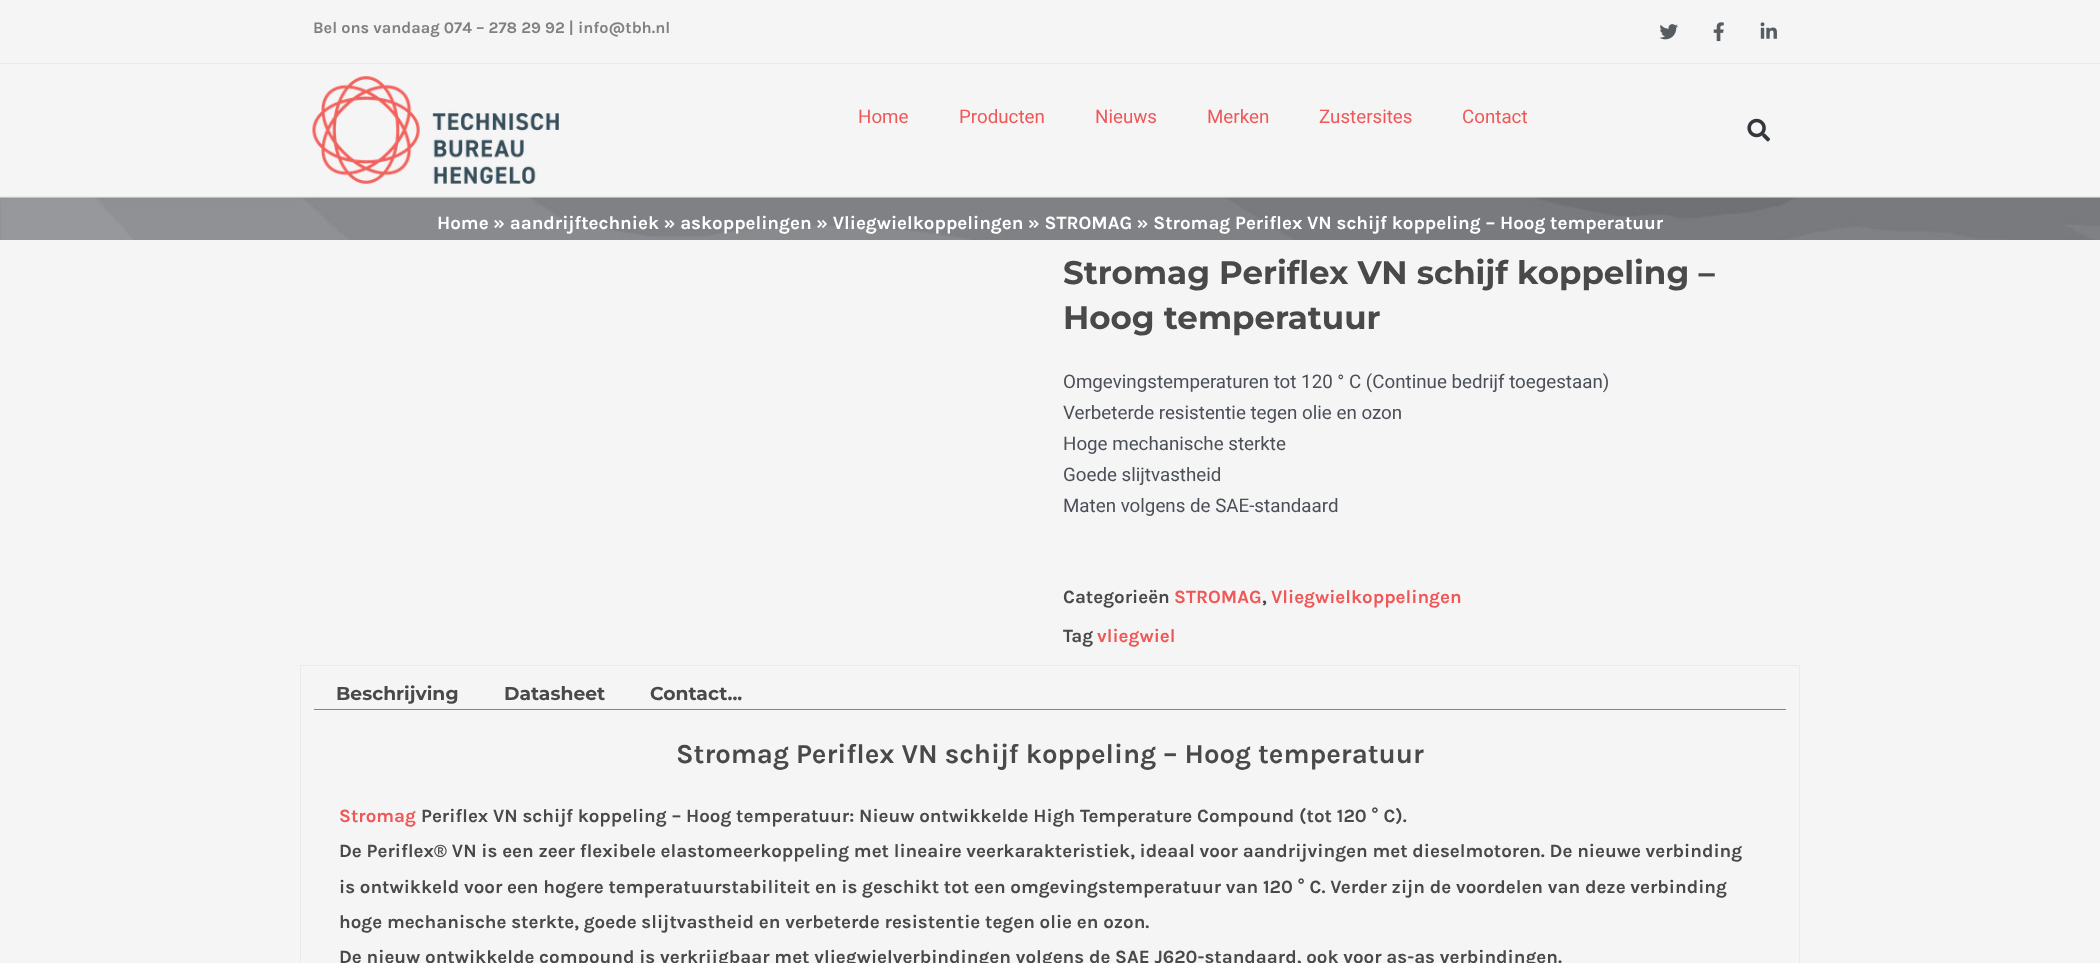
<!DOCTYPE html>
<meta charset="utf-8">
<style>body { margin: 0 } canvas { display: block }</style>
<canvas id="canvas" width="2100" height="963"></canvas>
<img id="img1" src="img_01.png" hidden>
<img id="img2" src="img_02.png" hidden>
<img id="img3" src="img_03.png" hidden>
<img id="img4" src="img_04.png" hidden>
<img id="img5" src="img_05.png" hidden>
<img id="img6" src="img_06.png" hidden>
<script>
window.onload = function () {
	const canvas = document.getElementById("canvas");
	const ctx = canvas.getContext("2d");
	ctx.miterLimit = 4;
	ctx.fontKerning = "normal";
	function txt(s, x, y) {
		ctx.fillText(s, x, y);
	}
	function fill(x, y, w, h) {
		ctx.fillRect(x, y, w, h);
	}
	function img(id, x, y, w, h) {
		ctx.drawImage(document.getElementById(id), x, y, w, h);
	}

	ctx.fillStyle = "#F5F5F5";
	fill(0, 0, 2100, 963);
	img("img1", 1659, 24, 19, 16);
	img("img2", 1713, 22, 11, 20);
	img("img3", 1760, 22, 17, 17);
	ctx.fillStyle = "#EAEAEA";
	fill(0, 63, 2100, 1);
	fill(0, 196, 2100, 1);
	img("img4", 312, 76, 247, 108);
	img("img5", 1747, 118, 24, 24);
	img("img6", 0, 197, 2100, 43);
	ctx.strokeStyle = "#EAEAEA";
	ctx.strokeRect(300.5, 665.5, 1499, 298);
	ctx.fillStyle = "#F05858";
	fill(314, 709, 1472, 1);
	ctx.font = "bold 16.25px Karla";
	ctx.fillStyle = "#808080";
	txt("Bel ons vandaag 074 – 278 29 92 | info@tbh.nl", 313, 33);
	ctx.font = "18.75px Roboto";
	ctx.fillStyle = "#F05858";
	txt("Home", 858, 123);
	txt("Producten", 959, 123);
	txt("Nieuws", 1095, 123);
	txt("Merken", 1207, 123);
	txt("Zustersites", 1319, 123);
	txt("Contact", 1462, 123);
	ctx.font = "bold 18.75px Karla";
	ctx.fillStyle = "#FFFFFF";
	txt("Home » aandrijftechniek » askoppelingen » Vliegwielkoppelingen » STROMAG » Stromag Periflex VN schijf koppeling – Hoog temperatuur", 437, 229);
	ctx.font = "bold 32.5px Montserrat";
	ctx.fillStyle = "#494949";
	txt("Stromag Periflex VN schijf koppeling –", 1063, 284);
	txt("Hoog temperatuur", 1063, 329);
	ctx.font = "18.75px Roboto";
	ctx.fillStyle = "#4B4F58";
	txt("Omgevingstemperaturen tot 120 ° C (Continue bedrijf toegestaan)", 1063, 388);
	txt("Verbeterde resistentie tegen olie en ozon", 1063, 419);
	txt("Hoge mechanische sterkte", 1063, 450);
	txt("Goede slijtvastheid", 1063, 481);
	txt("Maten volgens de SAE-standaard", 1063, 512);
	ctx.font = "bold 18.75px Karla";
	ctx.fillStyle = "#494949";
	txt("Categorieën", 1063, 603);
	ctx.fillStyle = "#F05858";
	txt("STROMAG", 1174, 603);
	ctx.fillStyle = "#494949";
	txt(",", 1262, 603);
	ctx.fillStyle = "#F05858";
	txt("Vliegwielkoppelingen", 1271, 603);
	ctx.fillStyle = "#494949";
	txt("Tag", 1063, 642);
	ctx.fillStyle = "#F05858";
	txt("vliegwiel", 1097, 642);
	ctx.font = "bold 18.75px Montserrat";
	ctx.fillStyle = "#494949";
	txt("Beschrijving", 336, 700);
	txt("Datasheet", 504, 700);
	txt("Contact...", 650, 700);
	ctx.font = "bold 27.5px Karla";
	txt("Stromag Periflex VN schijf koppeling – Hoog temperatuur", 676, 763);
	ctx.font = "bold 18.75px Karla";
	ctx.fillStyle = "#F05858";
	txt("Stromag", 339, 822);
	ctx.fillStyle = "#494949";
	txt("Periflex VN schijf koppeling – Hoog temperatuur: Nieuw ontwikkelde High Temperature Compound (tot 120 ° C).", 421, 822);
	txt("De Periflex® VN is een zeer flexibele elastomeerkoppeling met lineaire veerkarakteristiek, ideaal voor aandrijvingen met dieselmotoren. De nieuwe verbinding", 339, 857);
	txt("is ontwikkeld voor een hogere temperatuurstabiliteit en is geschikt tot een omgevingstemperatuur van 120 ° C. Verder zijn de voordelen van deze verbinding", 339, 893);
	txt("hoge mechanische sterkte, goede slijtvastheid en verbeterde resistentie tegen olie en ozon.", 339, 928);
	txt("De nieuw ontwikkelde compound is verkrijgbaar met vliegwielverbindingen volgens de SAE J620-standaard, ook voor as-as verbindingen.", 339, 963);
};
</script>
